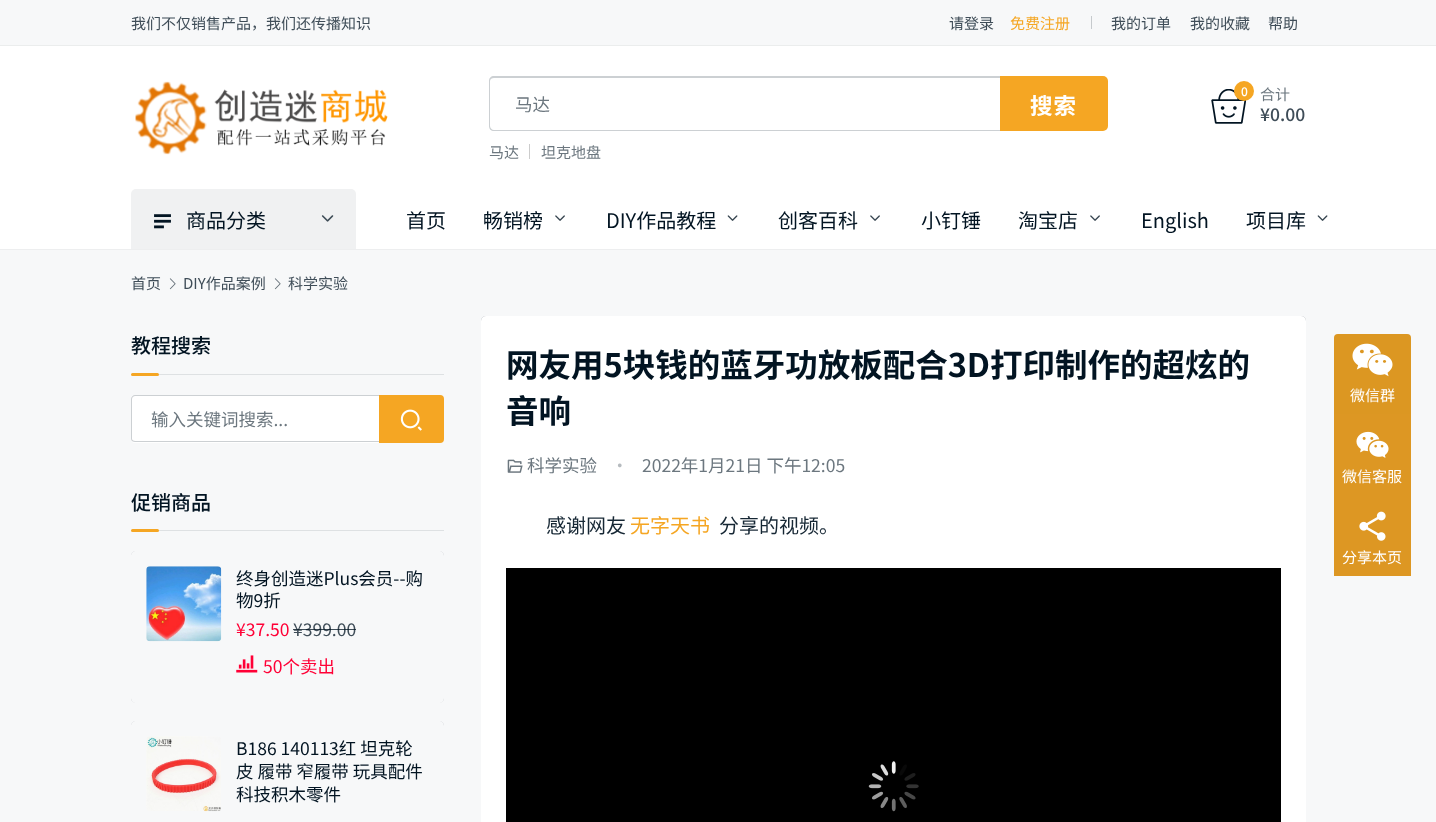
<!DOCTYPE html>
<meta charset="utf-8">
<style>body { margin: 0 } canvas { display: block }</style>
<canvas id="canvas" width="1436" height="822"></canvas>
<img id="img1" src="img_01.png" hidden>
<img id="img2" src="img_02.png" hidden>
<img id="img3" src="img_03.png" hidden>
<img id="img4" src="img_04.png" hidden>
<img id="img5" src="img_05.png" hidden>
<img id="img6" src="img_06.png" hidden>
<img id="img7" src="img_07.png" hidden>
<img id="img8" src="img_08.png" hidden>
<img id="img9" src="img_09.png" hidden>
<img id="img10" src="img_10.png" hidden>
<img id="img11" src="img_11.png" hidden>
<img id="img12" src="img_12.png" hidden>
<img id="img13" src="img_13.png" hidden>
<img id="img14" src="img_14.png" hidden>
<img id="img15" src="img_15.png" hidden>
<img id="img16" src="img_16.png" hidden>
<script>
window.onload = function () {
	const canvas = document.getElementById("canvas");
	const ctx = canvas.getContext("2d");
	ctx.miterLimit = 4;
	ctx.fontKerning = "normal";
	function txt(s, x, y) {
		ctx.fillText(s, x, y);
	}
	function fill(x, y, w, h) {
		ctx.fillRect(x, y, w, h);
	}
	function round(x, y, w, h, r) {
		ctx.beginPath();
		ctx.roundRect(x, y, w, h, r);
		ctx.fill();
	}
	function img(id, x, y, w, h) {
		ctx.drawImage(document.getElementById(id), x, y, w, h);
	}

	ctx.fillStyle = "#F7F8F9";
	fill(0, 0, 1436, 822);
	ctx.fillStyle = "#FFFFFF";
	fill(0, 46, 1436, 203);
	ctx.fillStyle = "#EDEEEF";
	fill(0, 249, 1436, 1);
	ctx.fillStyle = "#EBEDED";
	fill(0, 45, 1436, 1);
	ctx.fillStyle = "#C6CACD";
	fill(1091, 16, 1, 13);
	img("img1", 135, 81, 253, 74);
	ctx.fillStyle = "#CCD0D3";
	ctx.beginPath();
	ctx.moveTo(494, 76);
	ctx.bezierCurveTo(491, 76, 489, 78, 489, 81);
	ctx.lineTo(489, 126);
	ctx.bezierCurveTo(489, 129, 491, 131, 494, 131);
	ctx.lineTo(1000, 131);
	ctx.lineTo(1000, 130);
	ctx.lineTo(494, 130);
	ctx.bezierCurveTo(492, 130, 490, 128, 490, 126);
	ctx.lineTo(490, 81);
	ctx.bezierCurveTo(490, 79, 492, 78, 494, 78);
	ctx.lineTo(1000, 78);
	ctx.lineTo(1000, 76);
	ctx.closePath();
	ctx.fill();
	ctx.fillStyle = "#F5A623";
	ctx.beginPath();
	ctx.roundRect(1000, 76, 108, 55, [0, 5, 5, 0]);
	ctx.fill();
	ctx.fillStyle = "#CCCCCC";
	fill(529, 144, 1, 15);
	img("img2", 1211, 89, 35, 35);
	ctx.fillStyle = "#F5A623";
	ctx.beginPath();
	ctx.arc(1244, 91, 10, 0, Math.PI * 2);
	ctx.fill();
	ctx.fillStyle = "#F0F1F2";
	ctx.beginPath();
	ctx.roundRect(131, 189, 225, 60, [5, 5, 0, 0]);
	ctx.fill();
	img("img3", 154, 214, 17, 15);
	img("img4", 321, 215, 13, 7);
	img("img5", 555, 215, 10, 6);
	img("img6", 727, 215, 11, 6);
	img("img5", 870, 215, 10, 6);
	img("img5", 1090, 215, 10, 6);
	img("img6", 1317, 215, 11, 6);
	img("img7", 169, 278, 7, 12);
	img("img7", 274, 278, 7, 12);
	ctx.fillStyle = "#DEE1E3";
	fill(131, 374, 313, 1);
	ctx.fillStyle = "#F5A623";
	round(131, 373, 28, 3, 1.5);
	ctx.fillStyle = "#FFFFFF";
	ctx.beginPath();
	ctx.roundRect(131, 395, 248, 48, [4, 0, 0, 4]);
	ctx.fill();
	ctx.fillStyle = "rgba(2, 20, 34, 0.2)";
	ctx.beginPath();
	ctx.moveTo(135, 395);
	ctx.lineTo(379, 395);
	ctx.lineTo(379, 442);
	ctx.lineTo(135, 442);
	ctx.bezierCurveTo(133, 442, 131, 441, 131, 439);
	ctx.lineTo(131, 399);
	ctx.bezierCurveTo(131, 397, 133, 395, 135, 395);
	ctx.closePath();
	ctx.moveTo(135, 396);
	ctx.lineTo(379, 396);
	ctx.lineTo(379, 441);
	ctx.lineTo(135, 441);
	ctx.bezierCurveTo(134, 441, 132, 440, 132, 439);
	ctx.lineTo(132, 399);
	ctx.bezierCurveTo(132, 397, 134, 396, 135, 396);
	ctx.closePath();
	ctx.fill("evenodd");
	ctx.fillStyle = "#F5A623";
	ctx.beginPath();
	ctx.roundRect(379, 395, 65, 48, [0, 4, 4, 0]);
	ctx.fill();
	img("img8", 400, 409, 22, 22);
	ctx.fillStyle = "#DEE1E3";
	fill(131, 530, 313, 1);
	ctx.fillStyle = "#F5A623";
	round(131, 529, 28, 3, 1.5);
	ctx.save();
	ctx.beginPath();
	ctx.moveTo(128, 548);
	ctx.lineTo(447, 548);
	ctx.lineTo(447, 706);
	ctx.lineTo(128, 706);
	ctx.closePath();
	ctx.moveTo(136, 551);
	ctx.lineTo(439, 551);
	ctx.bezierCurveTo(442, 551, 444, 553, 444, 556);
	ctx.lineTo(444, 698);
	ctx.bezierCurveTo(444, 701, 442, 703, 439, 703);
	ctx.lineTo(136, 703);
	ctx.bezierCurveTo(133, 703, 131, 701, 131, 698);
	ctx.lineTo(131, 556);
	ctx.bezierCurveTo(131, 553, 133, 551, 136, 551);
	ctx.closePath();
	ctx.clip("evenodd");
	ctx.fillStyle = "rgba(2, 20, 34, 0.3)";
	ctx.filter = "blur(0.5px)";
	ctx.beginPath();
	ctx.roundRect(131, 551, 313, 152, 5);
	ctx.fill();
	ctx.filter = "none";
	ctx.restore();
	img("img9", 146, 566, 76, 76);
	img("img10", 236, 655, 22, 18);
	ctx.save();
	ctx.beginPath();
	ctx.moveTo(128, 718);
	ctx.lineTo(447, 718);
	ctx.lineTo(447, 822);
	ctx.lineTo(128, 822);
	ctx.closePath();
	ctx.moveTo(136, 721);
	ctx.lineTo(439, 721);
	ctx.bezierCurveTo(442, 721, 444, 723, 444, 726);
	ctx.lineTo(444, 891);
	ctx.bezierCurveTo(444, 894, 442, 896, 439, 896);
	ctx.lineTo(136, 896);
	ctx.bezierCurveTo(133, 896, 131, 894, 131, 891);
	ctx.lineTo(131, 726);
	ctx.bezierCurveTo(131, 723, 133, 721, 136, 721);
	ctx.closePath();
	ctx.clip("evenodd");
	ctx.fillStyle = "rgba(2, 20, 34, 0.3)";
	ctx.filter = "blur(0.5px)";
	ctx.beginPath();
	ctx.roundRect(131, 721, 313, 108, 5);
	ctx.fill();
	ctx.filter = "none";
	ctx.restore();
	img("img11", 146, 736, 75, 76);
	ctx.fillStyle = "rgba(2, 20, 34, 0.4)";
	ctx.filter = "blur(0.5px)";
	ctx.beginPath();
	ctx.roundRect(481, 316, 825, 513, 5);
	ctx.fill();
	ctx.filter = "none";
	ctx.fillStyle = "#FFFFFF";
	round(481, 316, 825, 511, 5);
	img("img12", 507, 459, 16, 14);
	ctx.fillStyle = "#000000";
	fill(506, 568, 775, 254);
	img("img13", 868, 761, 51, 51);
	ctx.fillStyle = "#F5A623";
	ctx.beginPath();
	ctx.roundRect(1334, 334, 77, 80, [4, 4, 0, 0]);
	ctx.fill();
	ctx.fillStyle = "rgba(2, 20, 34, 0.1)";
	ctx.beginPath();
	ctx.roundRect(1334, 334, 77, 80, [4, 4, 0, 0]);
	ctx.fill();
	img("img14", 1352, 343, 41, 34);
	ctx.fillStyle = "#DD9723";
	fill(1334, 414, 77, 162);
	img("img15", 1356, 431, 33, 27);
	img("img16", 1359, 511, 27, 30);
	ctx.font = "15px Noto Sans CJK SC";
	ctx.fillStyle = "#3F4D58";
	txt("我们不仅销售产品，我们还传播知识", 131, 29);
	txt("请登录", 949, 29);
	ctx.fillStyle = "#F5A623";
	txt("免费注册", 1010, 29);
	ctx.fillStyle = "#3F4D58";
	txt("我的订单", 1111, 29);
	txt("我的收藏", 1190, 29);
	txt("帮助", 1268, 29);
	ctx.font = "17.5px Noto Sans CJK SC";
	ctx.fillStyle = "#6C777F";
	txt("马达", 515, 111);
	ctx.letterSpacing = "1px";
	ctx.font = "bold 22.5px Noto Sans CJK SC";
	ctx.fillStyle = "#FFFFFF";
	txt("搜索", 1030, 114);
	ctx.letterSpacing = "0px";
	ctx.font = "15px Noto Sans CJK SC";
	ctx.fillStyle = "#6C777F";
	txt("马达", 489, 158);
	txt("坦克地盘", 541, 158);
	ctx.font = "500 12px Noto Sans CJK SC";
	ctx.fillStyle = "#FFFFFF";
	txt("0", 1241, 96);
	ctx.font = "15px Noto Sans CJK SC";
	ctx.fillStyle = "#6C777F";
	txt("合计", 1260, 100);
	ctx.font = "500 17.5px Noto Sans CJK SC";
	ctx.fillStyle = "#3F4D58";
	txt("¥0.00", 1260, 121);
	ctx.font = "20px Noto Sans CJK SC";
	ctx.fillStyle = "#021422";
	txt("商品分类", 186, 228);
	txt("首页", 406, 228);
	txt("畅销榜", 483, 228);
	txt("DIY作品教程", 606, 228);
	txt("创客百科", 778, 228);
	txt("小钉锤", 921, 228);
	txt("淘宝店", 1018, 228);
	txt("English", 1141, 228);
	txt("项目库", 1246, 228);
	ctx.font = "15px Noto Sans CJK SC";
	ctx.fillStyle = "#3F4D58";
	txt("首页", 131, 289);
	txt("DIY作品案例", 183, 289);
	txt("科学实验", 288, 289);
	ctx.font = "500 20px Noto Sans CJK SC";
	ctx.fillStyle = "#021422";
	txt("教程搜索", 131, 353);
	ctx.font = "17.5px Noto Sans CJK SC";
	ctx.fillStyle = "#6C777F";
	txt("输入关键词搜索...", 151, 426);
	ctx.font = "500 20px Noto Sans CJK SC";
	ctx.fillStyle = "#021422";
	txt("促销商品", 131, 510);
	ctx.font = "17.5px Noto Sans CJK SC";
	txt("终身创造迷Plus会员--购", 236, 585);
	txt("物9折", 236, 607);
	ctx.fillStyle = "#FF0036";
	txt("¥37.50", 236, 636);
	ctx.fillStyle = "#3F4D58";
	txt("¥399.00", 293, 636);
	ctx.fillStyle = "rgba(2, 20, 34, 0.75)";
	fill(293, 629, 10, 1);
	fill(303, 629, 53, 1);
	ctx.fillStyle = "#FF0036";
	txt("50个卖出", 263, 673);
	ctx.fillStyle = "#021422";
	txt("B186 140113红 坦克轮", 236, 755);
	txt("皮 履带 窄履带 玩具配件", 236, 778);
	txt("科技积木零件", 236, 801);
	ctx.font = "bold 32.5px Noto Sans CJK SC";
	txt("网友用5块钱的蓝牙功放板配合3D打印制作的超炫的", 506, 377);
	txt("音响", 506, 423);
	ctx.font = "17.5px Noto Sans CJK SC";
	ctx.fillStyle = "#6C777F";
	txt("科学实验", 527, 472);
	ctx.fillStyle = "#B6BBBF";
	txt("•", 611, 472);
	ctx.fillStyle = "#6C777F";
	txt("2022年1月21日 下午12:05", 642, 472);
	ctx.font = "20px Noto Sans CJK SC";
	ctx.fillStyle = "#162734";
	txt("感谢网友", 546, 533);
	ctx.fillStyle = "#F5A623";
	txt("无字天书", 630, 533);
	ctx.fillStyle = "#162734";
	txt("分享的视频。", 719, 533);
	ctx.font = "15px Noto Sans CJK SC";
	ctx.fillStyle = "#FFFFFF";
	txt("微信群", 1350, 401);
	txt("微信客服", 1342, 482);
	txt("分享本页", 1342, 563);
};
</script>
